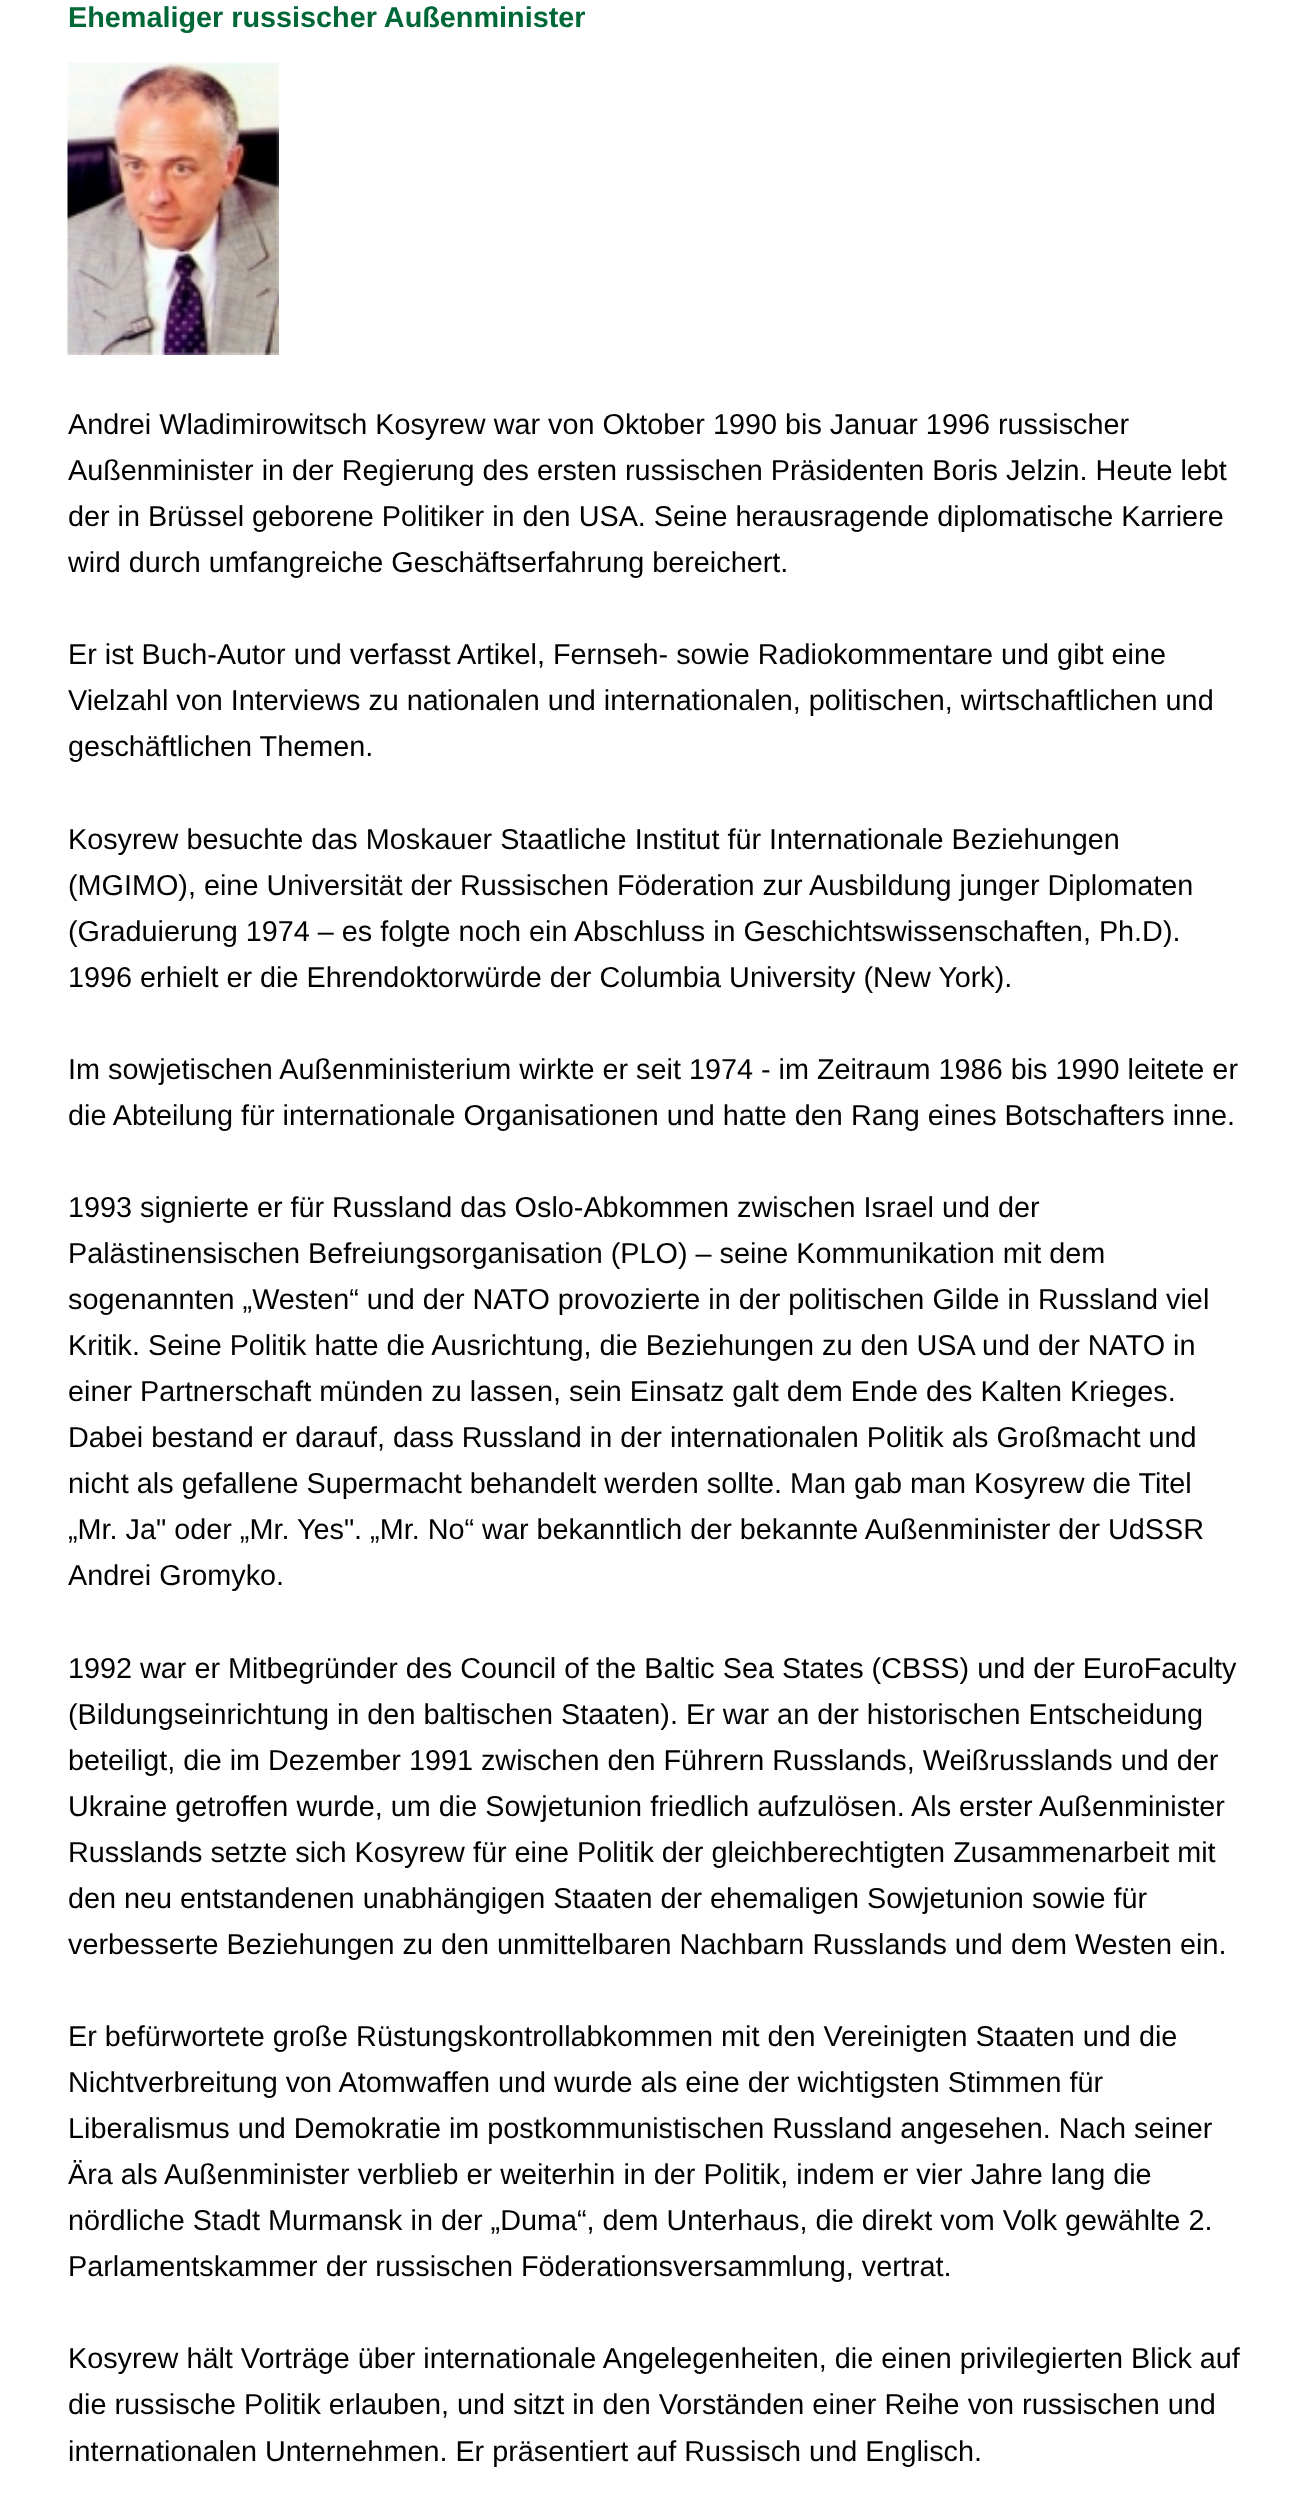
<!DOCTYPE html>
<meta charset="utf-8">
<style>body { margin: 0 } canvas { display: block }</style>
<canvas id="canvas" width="1314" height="2499"></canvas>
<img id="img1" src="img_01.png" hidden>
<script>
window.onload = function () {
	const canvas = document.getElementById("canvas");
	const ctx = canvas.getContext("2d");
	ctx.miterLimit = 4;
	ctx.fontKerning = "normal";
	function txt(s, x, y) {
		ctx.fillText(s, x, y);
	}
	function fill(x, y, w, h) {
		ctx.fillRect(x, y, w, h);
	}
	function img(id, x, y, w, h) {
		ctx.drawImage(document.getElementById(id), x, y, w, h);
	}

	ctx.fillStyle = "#FFFFFF";
	fill(0, 0, 1314, 2499);
	img("img1", 67, 62, 212, 293);
	ctx.font = "bold 28.8px Liberation Sans";
	ctx.fillStyle = "#006836";
	txt("Ehemaliger russischer Außenminister", 68, 27);
	ctx.font = "28.8px Liberation Sans";
	ctx.fillStyle = "#000000";
	txt("Andrei Wladimirowitsch Kosyrew war von Oktober 1990 bis Januar 1996 russischer", 68, 434);
	txt("Außenminister in der Regierung des ersten russischen Präsidenten Boris Jelzin. Heute lebt", 68, 480);
	txt("der in Brüssel geborene Politiker in den USA. Seine herausragende diplomatische Karriere", 68, 526);
	txt("wird durch umfangreiche Geschäftserfahrung bereichert.", 68, 572);
	txt("Er ist Buch-Autor und verfasst Artikel, Fernseh- sowie Radiokommentare und gibt eine", 68, 664);
	txt("Vielzahl von Interviews zu nationalen und internationalen, politischen, wirtschaftlichen und", 68, 710);
	txt("geschäftlichen Themen.", 68, 756);
	txt("Kosyrew besuchte das Moskauer Staatliche Institut für Internationale Beziehungen", 68, 849);
	txt("(MGIMO), eine Universität der Russischen Föderation zur Ausbildung junger Diplomaten", 68, 895);
	txt("(Graduierung 1974 – es folgte noch ein Abschluss in Geschichtswissenschaften, Ph.D).", 68, 941);
	txt("1996 erhielt er die Ehrendoktorwürde der Columbia University (New York).", 68, 987);
	txt("Im sowjetischen Außenministerium wirkte er seit 1974 - im Zeitraum 1986 bis 1990 leitete er", 68, 1079);
	txt("die Abteilung für internationale Organisationen und hatte den Rang eines Botschafters inne.", 68, 1125);
	txt("1993 signierte er für Russland das Oslo-Abkommen zwischen Israel und der", 68, 1217);
	txt("Palästinensischen Befreiungsorganisation (PLO) – seine Kommunikation mit dem", 68, 1263);
	txt("sogenannten „Westen“ und der NATO provozierte in der politischen Gilde in Russland viel", 68, 1309);
	txt("Kritik. Seine Politik hatte die Ausrichtung, die Beziehungen zu den USA und der NATO in", 68, 1355);
	txt("einer Partnerschaft münden zu lassen, sein Einsatz galt dem Ende des Kalten Krieges.", 68, 1401);
	txt("Dabei bestand er darauf, dass Russland in der internationalen Politik als Großmacht und", 68, 1447);
	txt("nicht als gefallene Supermacht behandelt werden sollte. Man gab man Kosyrew die Titel", 68, 1493);
	txt("„Mr. Ja\" oder „Mr. Yes\". „Mr. No“ war bekanntlich der bekannte Außenminister der UdSSR", 68, 1539);
	txt("Andrei Gromyko.", 68, 1585);
	txt("1992 war er Mitbegründer des Council of the Baltic Sea States (CBSS) und der EuroFaculty", 68, 1678);
	txt("(Bildungseinrichtung in den baltischen Staaten). Er war an der historischen Entscheidung", 68, 1724);
	txt("beteiligt, die im Dezember 1991 zwischen den Führern Russlands, Weißrusslands und der", 68, 1770);
	txt("Ukraine getroffen wurde, um die Sowjetunion friedlich aufzulösen. Als erster Außenminister", 68, 1816);
	txt("Russlands setzte sich Kosyrew für eine Politik der gleichberechtigten Zusammenarbeit mit", 68, 1862);
	txt("den neu entstandenen unabhängigen Staaten der ehemaligen Sowjetunion sowie für", 68, 1908);
	txt("verbesserte Beziehungen zu den unmittelbaren Nachbarn Russlands und dem Westen ein.", 68, 1954);
	txt("Er befürwortete große Rüstungskontrollabkommen mit den Vereinigten Staaten und die", 68, 2046);
	txt("Nichtverbreitung von Atomwaffen und wurde als eine der wichtigsten Stimmen für", 68, 2092);
	txt("Liberalismus und Demokratie im postkommunistischen Russland angesehen. Nach seiner", 68, 2138);
	txt("Ära als Außenminister verblieb er weiterhin in der Politik, indem er vier Jahre lang die", 68, 2184);
	txt("nördliche Stadt Murmansk in der „Duma“, dem Unterhaus, die direkt vom Volk gewählte 2.", 68, 2230);
	txt("Parlamentskammer der russischen Föderationsversammlung, vertrat.", 68, 2276);
	txt("Kosyrew hält Vorträge über internationale Angelegenheiten, die einen privilegierten Blick auf", 68, 2368);
	txt("die russische Politik erlauben, und sitzt in den Vorständen einer Reihe von russischen und", 68, 2414);
	txt("internationalen Unternehmen. Er präsentiert auf Russisch und Englisch.", 68, 2461);
};
</script>
